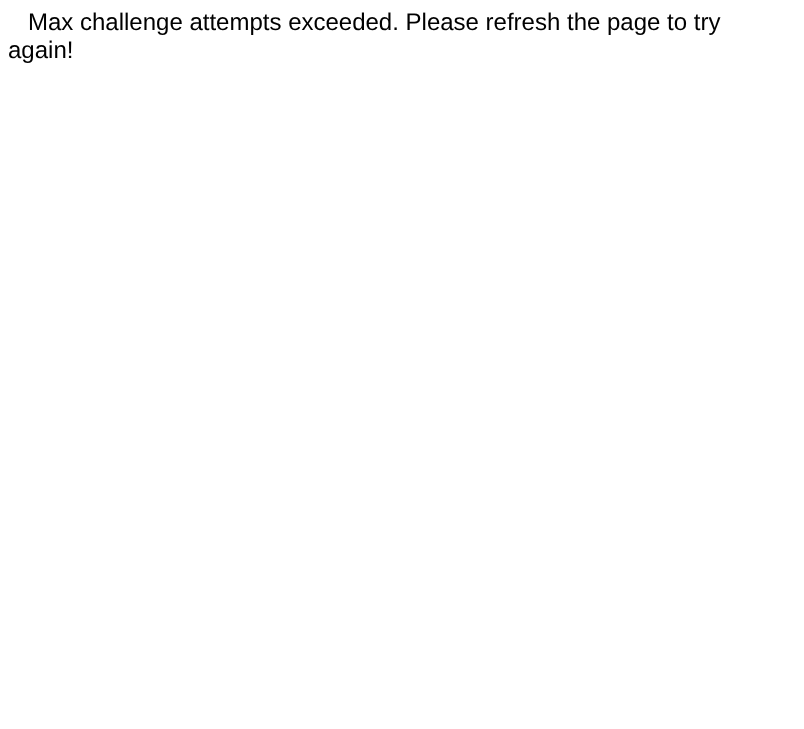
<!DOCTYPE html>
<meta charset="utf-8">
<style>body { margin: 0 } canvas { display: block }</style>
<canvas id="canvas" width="804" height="729"></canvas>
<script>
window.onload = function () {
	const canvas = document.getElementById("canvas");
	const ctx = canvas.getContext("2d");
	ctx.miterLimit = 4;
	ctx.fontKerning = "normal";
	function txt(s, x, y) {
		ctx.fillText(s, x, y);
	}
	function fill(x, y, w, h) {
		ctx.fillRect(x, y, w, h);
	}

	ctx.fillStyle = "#FFFFFF";
	fill(0, 0, 804, 729);
	ctx.font = "24px Liberation Sans";
	ctx.fillStyle = "#000000";
	txt("Max challenge attempts exceeded. Please refresh the page to try", 28, 30);
	txt("again!", 8, 58);
};
</script>
